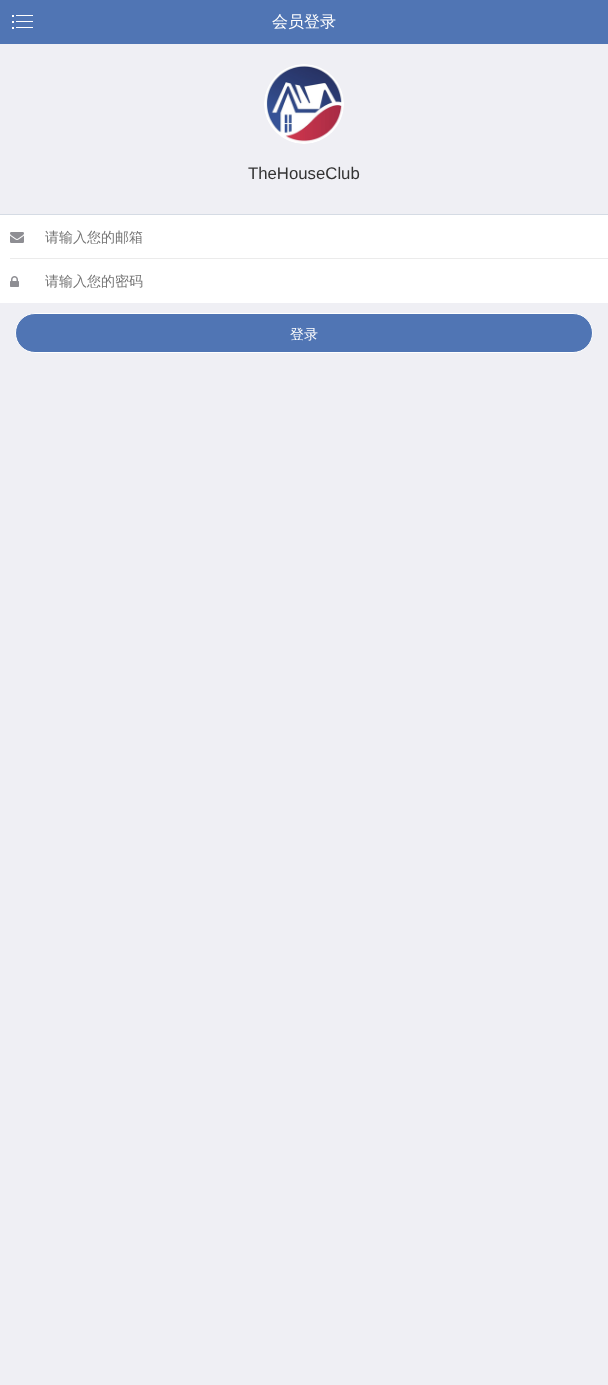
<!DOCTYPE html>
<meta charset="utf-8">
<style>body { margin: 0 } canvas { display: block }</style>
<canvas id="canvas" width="608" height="1385"></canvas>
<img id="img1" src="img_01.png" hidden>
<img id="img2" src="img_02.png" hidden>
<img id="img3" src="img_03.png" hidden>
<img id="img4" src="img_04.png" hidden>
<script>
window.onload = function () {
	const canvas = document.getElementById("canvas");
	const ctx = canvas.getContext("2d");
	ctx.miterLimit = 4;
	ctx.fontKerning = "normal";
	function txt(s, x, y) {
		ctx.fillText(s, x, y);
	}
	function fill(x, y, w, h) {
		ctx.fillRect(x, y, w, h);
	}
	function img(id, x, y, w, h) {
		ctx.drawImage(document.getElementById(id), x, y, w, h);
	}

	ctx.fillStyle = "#EFEFF4";
	fill(0, 0, 608, 1385);
	ctx.fillStyle = "#5075B4";
	fill(0, 0, 608, 44);
	img("img1", 12, 15, 21, 14);
	img("img2", 264, 64, 80, 80);
	ctx.fillStyle = "#D5DBE4";
	fill(0, 214, 608, 1);
	ctx.fillStyle = "#FFFFFF";
	fill(0, 215, 608, 88);
	ctx.fillStyle = "#EBEBEB";
	fill(10, 258, 598, 1);
	img("img3", 10, 232, 14, 11);
	img("img4", 10, 276, 9, 11);
	ctx.fillStyle = "#5075B4";
	ctx.beginPath();
	ctx.roundRect(15.5, 313.5, 577, 39, 19.5);
	ctx.fill();
	ctx.strokeStyle = "#FFFFFF";
	ctx.stroke();
	ctx.font = "500 16px WenQuanYi Zen Hei";
	ctx.fillStyle = "#FFFFFF";
	txt("会员登录", 272, 27);
	ctx.font = "16.75px Liberation Sans";
	ctx.fillStyle = "#333333";
	txt("TheHouseClub", 248, 179);
	ctx.font = "500 14px WenQuanYi Zen Hei";
	ctx.fillStyle = "#757575";
	txt("请输入您的邮箱", 45, 242);
	txt("请输入您的密码", 45, 286);
	ctx.fillStyle = "#FFFFFF";
	txt("登录", 290, 339);
};
</script>
